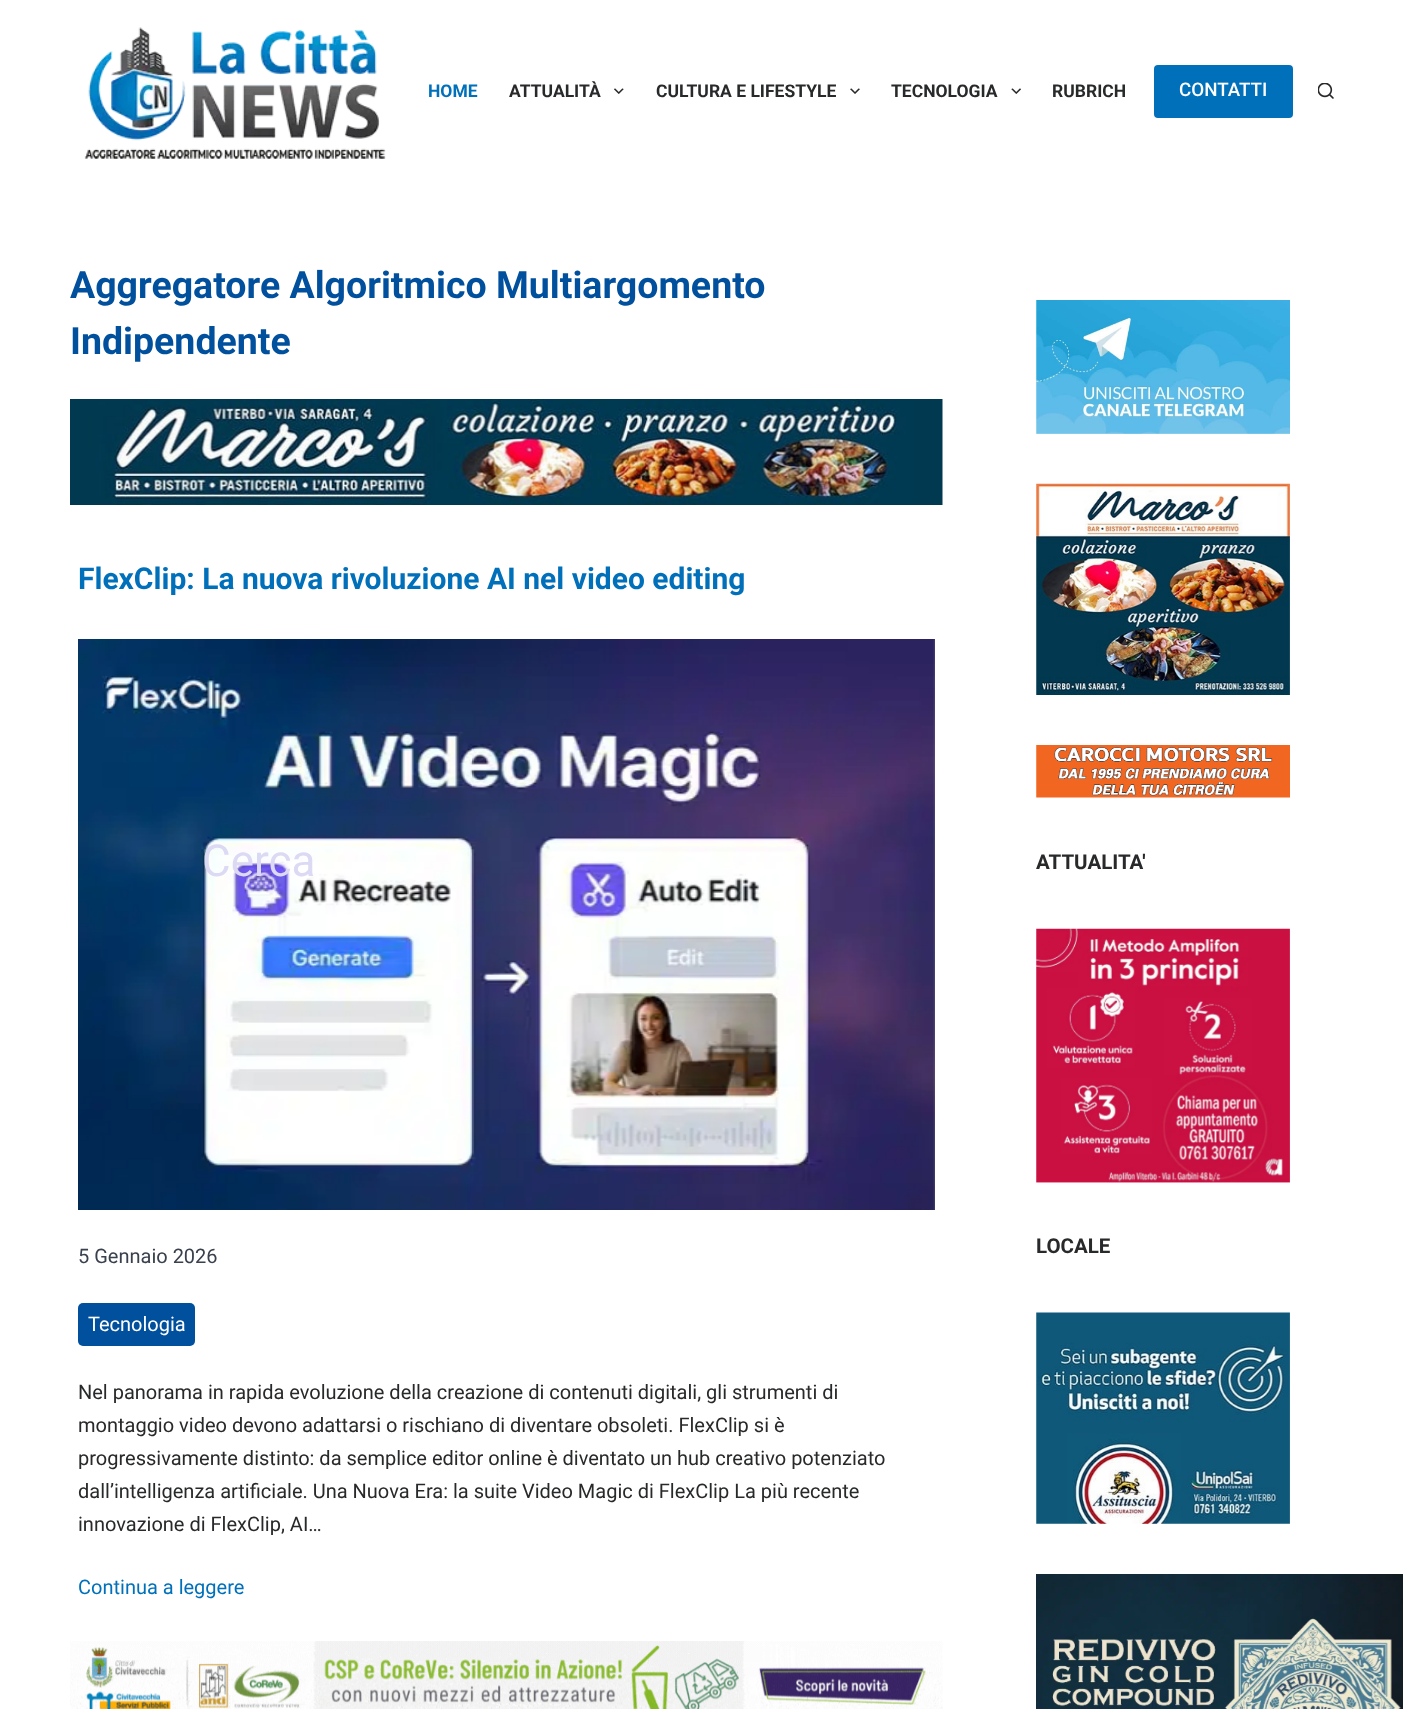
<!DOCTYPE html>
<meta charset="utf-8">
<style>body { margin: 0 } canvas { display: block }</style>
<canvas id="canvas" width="1403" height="1709"></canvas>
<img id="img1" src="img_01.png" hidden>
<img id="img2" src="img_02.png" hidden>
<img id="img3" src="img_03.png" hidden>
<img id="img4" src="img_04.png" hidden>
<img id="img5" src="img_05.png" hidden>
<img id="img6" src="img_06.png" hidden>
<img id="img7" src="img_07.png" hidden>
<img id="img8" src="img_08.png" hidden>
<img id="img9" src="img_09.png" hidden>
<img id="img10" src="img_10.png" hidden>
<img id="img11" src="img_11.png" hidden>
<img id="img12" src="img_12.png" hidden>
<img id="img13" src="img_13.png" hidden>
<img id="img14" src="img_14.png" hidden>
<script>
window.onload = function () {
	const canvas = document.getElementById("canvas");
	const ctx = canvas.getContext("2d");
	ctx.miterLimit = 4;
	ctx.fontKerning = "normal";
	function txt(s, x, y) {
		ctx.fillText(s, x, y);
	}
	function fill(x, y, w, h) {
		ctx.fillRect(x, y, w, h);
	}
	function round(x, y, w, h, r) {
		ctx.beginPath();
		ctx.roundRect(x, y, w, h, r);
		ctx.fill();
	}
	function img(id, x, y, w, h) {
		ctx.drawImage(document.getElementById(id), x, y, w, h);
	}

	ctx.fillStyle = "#FFFFFF";
	fill(0, 0, 1403, 1709);
	img("img1", 84, 27, 302, 132);
	img("img2", 614, 88, 10, 6);
	img("img3", 850, 88, 10, 6);
	img("img4", 1011, 88, 10, 6);
	ctx.fillStyle = "#0170BA";
	round(1154, 65, 139, 53, 4);
	img("img5", 1318, 83, 16, 16);
	img("img6", 70, 399, 873, 106);
	img("img7", 78, 639, 857, 571);
	ctx.fillStyle = "#00509D";
	round(78, 1303, 117, 43, 5);
	img("img8", 70, 1641, 873, 68);
	img("img9", 1036, 300, 254, 134);
	img("img10", 1036, 483, 254, 212);
	img("img11", 1036, 745, 254, 53);
	img("img12", 1036, 928, 254, 255);
	img("img13", 1036, 1312, 254, 212);
	img("img14", 1036, 1574, 367, 135);
	ctx.font = "bold 17.5px Roboto";
	ctx.fillStyle = "#0170BA";
	txt("HOME", 428, 97);
	ctx.fillStyle = "#28292A";
	txt("ATTUALITÀ", 509, 97);
	txt("CULTURA E LIFESTYLE", 656, 97);
	txt("TECNOLOGIA", 891, 97);
	txt("RUBRICH", 1052, 97);
	ctx.font = "500 18.75px Roboto";
	ctx.fillStyle = "#FFFFFF";
	txt("CONTATTI", 1179, 96);
	ctx.font = "bold 37.5px Roboto";
	ctx.fillStyle = "#00509D";
	txt("Aggregatore Algoritmico Multiargomento", 70, 298);
	txt("Indipendente", 70, 354);
	ctx.font = "bold 30px Roboto";
	ctx.fillStyle = "#0170BA";
	txt("FlexClip: La nuova rivoluzione AI nel video editing", 78, 589);
	ctx.font = "20px Roboto";
	ctx.fillStyle = "#39414D";
	txt("5 Gennaio 2026", 78, 1263);
	ctx.fillStyle = "#FFFFFF";
	txt("Tecnologia", 88, 1331);
	ctx.fillStyle = "#28292A";
	txt("Nel panorama in rapida evoluzione della creazione di contenuti digitali, gli strumenti di", 78, 1399);
	txt("montaggio video devono adattarsi o rischiano di diventare obsoleti. FlexClip si è", 78, 1432);
	txt("progressivamente distinto: da semplice editor online è diventato un hub creativo potenziato", 78, 1465);
	txt("dall’intelligenza artificiale. Una Nuova Era: la suite Video Magic di FlexClip La più recente", 78, 1498);
	txt("innovazione di FlexClip, AI…", 78, 1531);
	ctx.fillStyle = "#0170BA";
	txt("Continua a leggere", 78, 1594);
	ctx.font = "bold 20.5px Roboto";
	ctx.fillStyle = "#28292A";
	txt("ATTUALITA'", 1036, 869);
	txt("LOCALE", 1036, 1253);
	ctx.font = "44px Roboto";
	ctx.fillStyle = "#DCD9F4";
	txt("Cerca", 202, 876);
};
</script>
